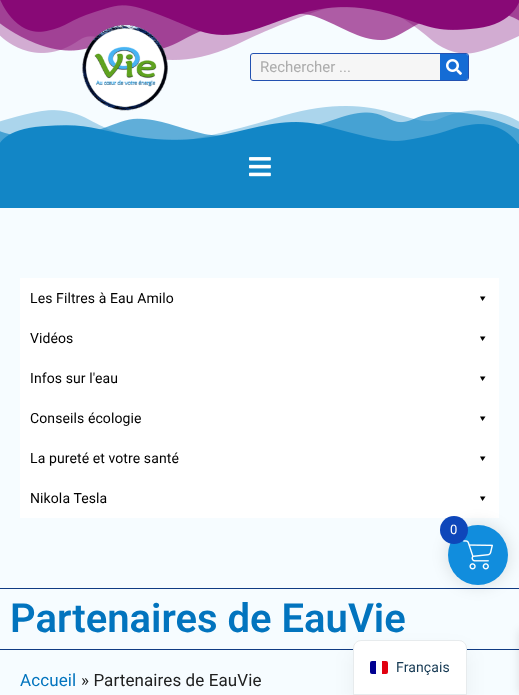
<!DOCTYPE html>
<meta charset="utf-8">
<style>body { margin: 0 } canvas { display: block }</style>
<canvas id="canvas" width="519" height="695"></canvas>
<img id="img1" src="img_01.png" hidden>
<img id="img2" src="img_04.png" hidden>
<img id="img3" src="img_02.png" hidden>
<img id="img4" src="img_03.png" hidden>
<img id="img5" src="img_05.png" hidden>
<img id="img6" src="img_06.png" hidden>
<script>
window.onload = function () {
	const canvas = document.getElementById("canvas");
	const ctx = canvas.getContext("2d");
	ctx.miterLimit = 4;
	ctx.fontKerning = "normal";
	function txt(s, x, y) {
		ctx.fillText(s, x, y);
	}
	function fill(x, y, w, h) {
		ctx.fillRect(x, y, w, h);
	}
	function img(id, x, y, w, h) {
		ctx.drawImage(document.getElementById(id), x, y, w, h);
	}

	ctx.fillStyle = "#F6FCFF";
	fill(0, 0, 519, 695);
	img("img1", 0, 0, 519, 60);
	img("img2", 0, 106, 519, 38);
	img("img3", 82, 24, 86, 87);
	ctx.fillStyle = "#F6F6F6";
	ctx.beginPath();
	ctx.roundRect(250.5, 53.5, 218, 27, 2.5);
	ctx.fill();
	ctx.strokeStyle = "#2351B1";
	ctx.stroke();
	ctx.fillStyle = "#146CD5";
	ctx.beginPath();
	ctx.roundRect(440, 54, 28, 26, [0, 2, 2, 0]);
	ctx.fill();
	img("img4", 446, 59, 16, 16);
	ctx.fillStyle = "#1286C6";
	fill(0, 144, 519, 64);
	img("img5", 249, 157, 22, 20);
	ctx.fillStyle = "#FFFFFF";
	fill(20, 278, 479, 240);
	ctx.fillStyle = "#000000";
	ctx.beginPath();
	ctx.moveTo(485.5, 296.5);
	ctx.lineTo(482.5, 301);
	ctx.lineTo(480, 296.5);
	ctx.closePath();
	ctx.fill();
	ctx.beginPath();
	ctx.moveTo(485.5, 336.5);
	ctx.lineTo(482.5, 341);
	ctx.lineTo(480, 336.5);
	ctx.closePath();
	ctx.fill();
	ctx.beginPath();
	ctx.moveTo(485.5, 376.5);
	ctx.lineTo(482.5, 381);
	ctx.lineTo(480, 376.5);
	ctx.closePath();
	ctx.fill();
	ctx.beginPath();
	ctx.moveTo(485.5, 416.5);
	ctx.lineTo(482.5, 421);
	ctx.lineTo(480, 416.5);
	ctx.closePath();
	ctx.fill();
	ctx.beginPath();
	ctx.moveTo(485.5, 456.5);
	ctx.lineTo(482.5, 461);
	ctx.lineTo(480, 456.5);
	ctx.closePath();
	ctx.fill();
	ctx.beginPath();
	ctx.moveTo(485.5, 496.5);
	ctx.lineTo(482.5, 501);
	ctx.lineTo(480, 496.5);
	ctx.closePath();
	ctx.fill();
	ctx.fillStyle = "#103B83";
	fill(0, 588, 519, 1);
	fill(0, 649, 519, 1);
	ctx.fillStyle = "rgba(0, 0, 0, 0.1)";
	ctx.filter = "blur(7.5px)";
	ctx.beginPath();
	ctx.roundRect(446, 523, 64, 64, 32);
	ctx.fill();
	ctx.filter = "none";
	ctx.fillStyle = "#118DDD";
	ctx.beginPath();
	ctx.arc(478, 555, 30, 0, Math.PI * 2);
	ctx.fill();
	img("img6", 463, 540, 30, 30);
	ctx.fillStyle = "#0E47BA";
	ctx.beginPath();
	ctx.arc(454, 530, 14, 0, Math.PI * 2);
	ctx.fill();
	ctx.fillStyle = "rgba(0, 0, 0, 0.1)";
	ctx.filter = "blur(5px)";
	ctx.beginPath();
	ctx.rect(519, 630, 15, 64);
	ctx.fill();
	ctx.filter = "none";
	ctx.fillStyle = "rgba(0, 0, 0, 0.05)";
	ctx.filter = "blur(10px)";
	ctx.beginPath();
	ctx.roundRect(353, 650, 114, 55, 8);
	ctx.fill();
	ctx.filter = "none";
	ctx.fillStyle = "#FFFFFF";
	ctx.beginPath();
	ctx.roundRect(353, 640, 114, 55, [8, 8, 0, 0]);
	ctx.fill();
	ctx.beginPath();
	ctx.roundRect(353.5, 640.5, 113, 54, [7.5, 7.5, 0, 0]);
	ctx.strokeStyle = "rgba(20, 56, 82, 0.1)";
	ctx.stroke();
	ctx.fillStyle = "#000091";
	ctx.beginPath();
	ctx.roundRect(370, 661, 6, 13, [2, 0, 0, 2]);
	ctx.fill();
	ctx.fillStyle = "#E1000F";
	ctx.beginPath();
	ctx.roundRect(382, 661, 6, 13, [0, 2, 2, 0]);
	ctx.fill();
	ctx.font = "15px Roboto";
	ctx.fillStyle = "#ACACAC";
	txt("Rechercher ...", 260, 72);
	ctx.letterSpacing = "0.1px";
	ctx.font = "14px Roboto";
	ctx.fillStyle = "#000000";
	txt("Les Filtres à Eau Amilo", 30, 303);
	txt("Vidéos", 30, 343);
	txt("Infos sur l'eau", 30, 383);
	txt("Conseils écologie", 30, 423);
	txt("La pureté et votre santé", 30, 463);
	txt("Nikola Tesla", 30, 503);
	ctx.letterSpacing = "0px";
	ctx.font = "600 40px Roboto";
	ctx.fillStyle = "#0274BE";
	txt("Partenaires de EauVie", 10, 632);
	ctx.letterSpacing = "0.1px";
	ctx.font = "17px Roboto";
	txt("Accueil", 20, 686);
	ctx.fillStyle = "#202121";
	txt("» Partenaires de EauVie", 81, 686);
	ctx.font = "13px Roboto";
	ctx.fillStyle = "#FFFFFF";
	txt("0", 450, 534);
	ctx.font = "14px Roboto";
	ctx.fillStyle = "#143852";
	txt("Français", 396, 672);
};
</script>
